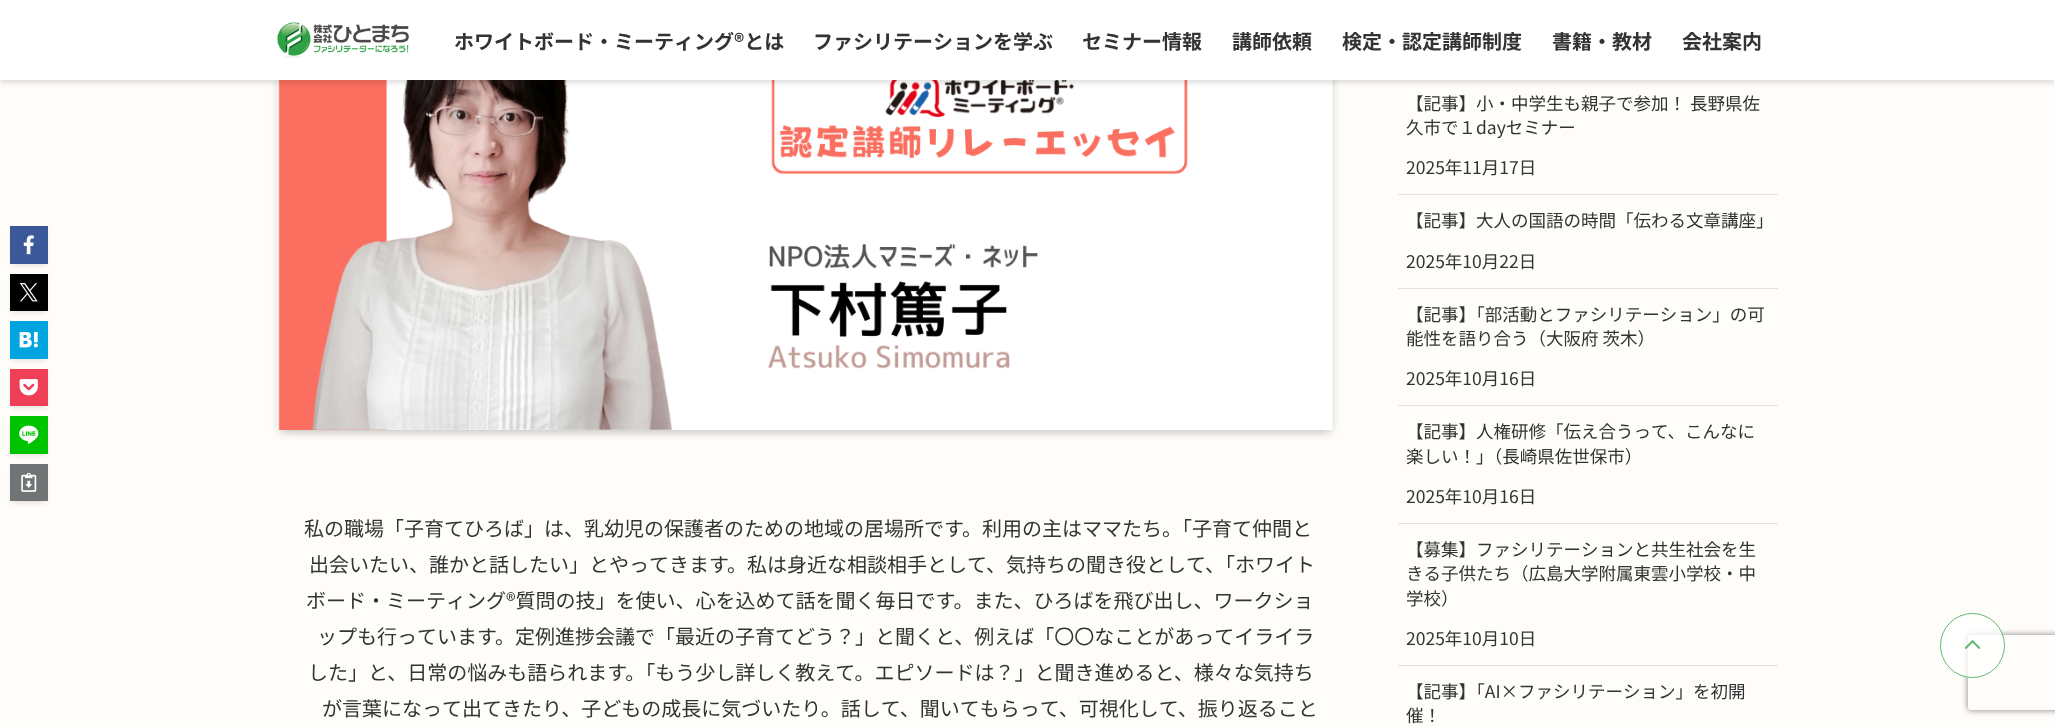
<!DOCTYPE html>
<meta charset="utf-8">
<style>body { margin: 0 } canvas { display: block }</style>
<canvas id="canvas" width="2055" height="727"></canvas>
<img id="img1" src="img_08.png" hidden>
<img id="img2" src="img_01.png" hidden>
<img id="img3" src="img_02.png" hidden>
<img id="img4" src="img_03.png" hidden>
<img id="img5" src="img_04.png" hidden>
<img id="img6" src="img_05.png" hidden>
<img id="img7" src="img_06.png" hidden>
<img id="img8" src="img_07.png" hidden>
<img id="img9" src="img_09.png" hidden>
<script>
window.onload = function () {
	const canvas = document.getElementById("canvas");
	const ctx = canvas.getContext("2d");
	ctx.miterLimit = 4;
	ctx.fontKerning = "normal";
	function txt(s, x, y) {
		ctx.fillText(s, x, y);
	}
	function fill(x, y, w, h) {
		ctx.fillRect(x, y, w, h);
	}
	function img(id, x, y, w, h) {
		ctx.drawImage(document.getElementById(id), x, y, w, h);
	}

	ctx.fillStyle = "#FFFDFA";
	fill(0, 0, 2055, 727);
	ctx.fillStyle = "rgba(0, 0, 0, 0.2)";
	ctx.filter = "blur(5px)";
	ctx.beginPath();
	ctx.rect(283, -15, 1045, 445);
	ctx.fill();
	ctx.filter = "none";
	ctx.fillStyle = "rgba(0, 0, 0, 0.1)";
	ctx.filter = "blur(5px)";
	ctx.beginPath();
	ctx.rect(278, -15, 1055, 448);
	ctx.fill();
	ctx.filter = "none";
	img("img1", 277, 80, 1056, 350);
	ctx.fillStyle = "rgba(0, 0, 0, 0.12)";
	ctx.filter = "blur(2.5px)";
	ctx.beginPath();
	ctx.rect(0, 3, 2055, 80);
	ctx.fill();
	ctx.filter = "none";
	ctx.fillStyle = "#FFFFFF";
	fill(0, 0, 2055, 80);
	img("img2", 277, 22, 132, 36);
	ctx.fillStyle = "rgba(0, 0, 0, 0.1)";
	ctx.filter = "blur(2.5px)";
	ctx.beginPath();
	ctx.rect(15, 236, 28, 28);
	ctx.fill();
	ctx.filter = "none";
	ctx.fillStyle = "rgba(0, 0, 0, 0.05)";
	ctx.filter = "blur(2.5px)";
	ctx.beginPath();
	ctx.rect(10, 229, 38, 37);
	ctx.fill();
	ctx.filter = "none";
	ctx.fillStyle = "#3B5998";
	fill(10, 226, 38, 38);
	img("img3", 23, 235, 11, 20);
	ctx.fillStyle = "rgba(0, 0, 0, 0.1)";
	ctx.filter = "blur(2.5px)";
	ctx.beginPath();
	ctx.rect(15, 284, 28, 27);
	ctx.fill();
	ctx.filter = "none";
	ctx.fillStyle = "rgba(0, 0, 0, 0.05)";
	ctx.filter = "blur(2.5px)";
	ctx.beginPath();
	ctx.rect(10, 276, 38, 38);
	ctx.fill();
	ctx.filter = "none";
	ctx.fillStyle = "#000000";
	fill(10, 274, 38, 37);
	img("img4", 19, 283, 19, 19);
	ctx.fillStyle = "rgba(0, 0, 0, 0.1)";
	ctx.filter = "blur(2.5px)";
	ctx.beginPath();
	ctx.rect(15, 331, 28, 28);
	ctx.fill();
	ctx.filter = "none";
	ctx.fillStyle = "rgba(0, 0, 0, 0.05)";
	ctx.filter = "blur(2.5px)";
	ctx.beginPath();
	ctx.rect(10, 324, 38, 37);
	ctx.fill();
	ctx.filter = "none";
	ctx.fillStyle = "#00A4DE";
	fill(10, 321, 38, 38);
	img("img5", 19, 332, 19, 16);
	ctx.fillStyle = "rgba(0, 0, 0, 0.1)";
	ctx.filter = "blur(2.5px)";
	ctx.beginPath();
	ctx.rect(15, 379, 28, 27);
	ctx.fill();
	ctx.filter = "none";
	ctx.fillStyle = "rgba(0, 0, 0, 0.05)";
	ctx.filter = "blur(2.5px)";
	ctx.beginPath();
	ctx.rect(10, 371, 38, 38);
	ctx.fill();
	ctx.filter = "none";
	ctx.fillStyle = "#EF3F56";
	fill(10, 369, 38, 37);
	img("img6", 19, 379, 19, 17);
	ctx.fillStyle = "rgba(0, 0, 0, 0.1)";
	ctx.filter = "blur(2.5px)";
	ctx.beginPath();
	ctx.rect(15, 426, 28, 28);
	ctx.fill();
	ctx.filter = "none";
	ctx.fillStyle = "rgba(0, 0, 0, 0.05)";
	ctx.filter = "blur(2.5px)";
	ctx.beginPath();
	ctx.rect(10, 419, 38, 37);
	ctx.fill();
	ctx.filter = "none";
	ctx.fillStyle = "#00C300";
	fill(10, 416, 38, 38);
	img("img7", 19, 425, 20, 19);
	ctx.fillStyle = "rgba(0, 0, 0, 0.1)";
	ctx.filter = "blur(2.5px)";
	ctx.beginPath();
	ctx.rect(15, 474, 28, 27);
	ctx.fill();
	ctx.filter = "none";
	ctx.fillStyle = "rgba(0, 0, 0, 0.05)";
	ctx.filter = "blur(2.5px)";
	ctx.beginPath();
	ctx.rect(10, 466, 38, 38);
	ctx.fill();
	ctx.filter = "none";
	ctx.fillStyle = "#717475";
	fill(10, 464, 38, 37);
	img("img8", 21, 473, 16, 19);
	ctx.fillStyle = "#E3E2E1";
	fill(1398, 194, 380, 1);
	fill(1398, 288, 380, 1);
	fill(1398, 405, 380, 1);
	fill(1398, 523, 380, 1);
	fill(1398, 665, 380, 1);
	ctx.save();
	ctx.beginPath();
	ctx.moveTo(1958, 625);
	ctx.lineTo(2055, 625);
	ctx.lineTo(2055, 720);
	ctx.lineTo(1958, 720);
	ctx.closePath();
	ctx.moveTo(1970.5, 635);
	ctx.lineTo(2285.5, 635);
	ctx.bezierCurveTo(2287, 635, 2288, 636, 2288, 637.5);
	ctx.lineTo(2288, 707.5);
	ctx.bezierCurveTo(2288, 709, 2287, 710, 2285.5, 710);
	ctx.lineTo(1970.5, 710);
	ctx.bezierCurveTo(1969, 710, 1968, 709, 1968, 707.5);
	ctx.lineTo(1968, 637.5);
	ctx.bezierCurveTo(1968, 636, 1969, 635, 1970.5, 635);
	ctx.closePath();
	ctx.clip("evenodd");
	ctx.fillStyle = "#808080";
	ctx.filter = "blur(3px)";
	ctx.beginPath();
	ctx.roundRect(1968, 635, 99, 75, 2.5);
	ctx.fill();
	ctx.filter = "none";
	ctx.restore();
	ctx.fillStyle = "rgba(255, 255, 255, 0.75)";
	ctx.beginPath();
	ctx.arc(1972.5, 645.5, 32.5, 0, Math.PI * 2);
	ctx.fill();
	ctx.beginPath();
	ctx.arc(1972.5, 645.5, 32, 0, Math.PI * 2);
	ctx.strokeStyle = "rgba(48, 160, 68, 0.75)";
	ctx.stroke();
	img("img9", 1964, 640, 17, 9);
	ctx.font = "bold 20px Noto Sans JP";
	ctx.fillStyle = "#333333";
	txt("ホワイトボード・ミーティング®とは", 454, 49);
	txt("ファシリテーションを学ぶ", 813, 49);
	txt("セミナー情報", 1082, 49);
	txt("講師依頼", 1232, 49);
	txt("検定・認定講師制度", 1342, 49);
	txt("書籍・教材", 1552, 49);
	txt("会社案内", 1682, 49);
	ctx.font = "20px Noto Sans JP";
	txt("私の職場「子育てひろば」は、乳幼児の保護者のための地域の居場所です。利用の主はママたち。「子育て仲間と", 304, 536);
	txt("出会いたい、誰かと話したい」とやってきます。私は身近な相談相手として、気持ちの聞き役として、「ホワイト", 309, 572);
	txt("ボード・ミーティング®︎質問の技」を使い、心を込めて話を聞く毎日です。また、ひろばを飛び出し、ワークショ", 306, 608);
	txt("ップも行っています。定例進捗会議で「最近の子育てどう？」と聞くと、例えば「〇〇なことがあってイライラ", 317, 644);
	txt("した」と、日常の悩みも語られます。「もう少し詳しく教えて。エピソードは？」と聞き進めると、様々な気持ち", 308, 680);
	txt("が言葉になって出てきたり、子どもの成長に気づいたり。話して、聞いてもらって、可視化して、振り返ること", 322, 716);
	ctx.font = "17.5px Noto Sans JP";
	txt("【記事】小・中学生も親子で参加！ 長野県佐", 1406, 110);
	txt("久市で１dayセミナー", 1406, 134);
	txt("2025年11月17日", 1406, 174);
	txt("【記事】大人の国語の時間「伝わる文章講座」", 1406, 227);
	txt("2025年10月22日", 1406, 268);
	txt("【記事】「部活動とファシリテーション」の可", 1406, 321);
	txt("能性を語り合う（大阪府 茨木）", 1406, 345);
	txt("2025年10月16日", 1406, 385);
	txt("【記事】人権研修「伝え合うって、こんなに", 1406, 438);
	txt("楽しい！」（長崎県佐世保市）", 1406, 463);
	txt("2025年10月16日", 1406, 503);
	txt("【募集】ファシリテーションと共生社会を生", 1406, 556);
	txt("きる子供たち（広島大学附属東雲小学校・中", 1406, 580);
	txt("学校）", 1406, 605);
	txt("2025年10月10日", 1406, 645);
	txt("【記事】「AI×ファシリテーション」を初開", 1406, 698);
	txt("催！", 1406, 722);
};
</script>
